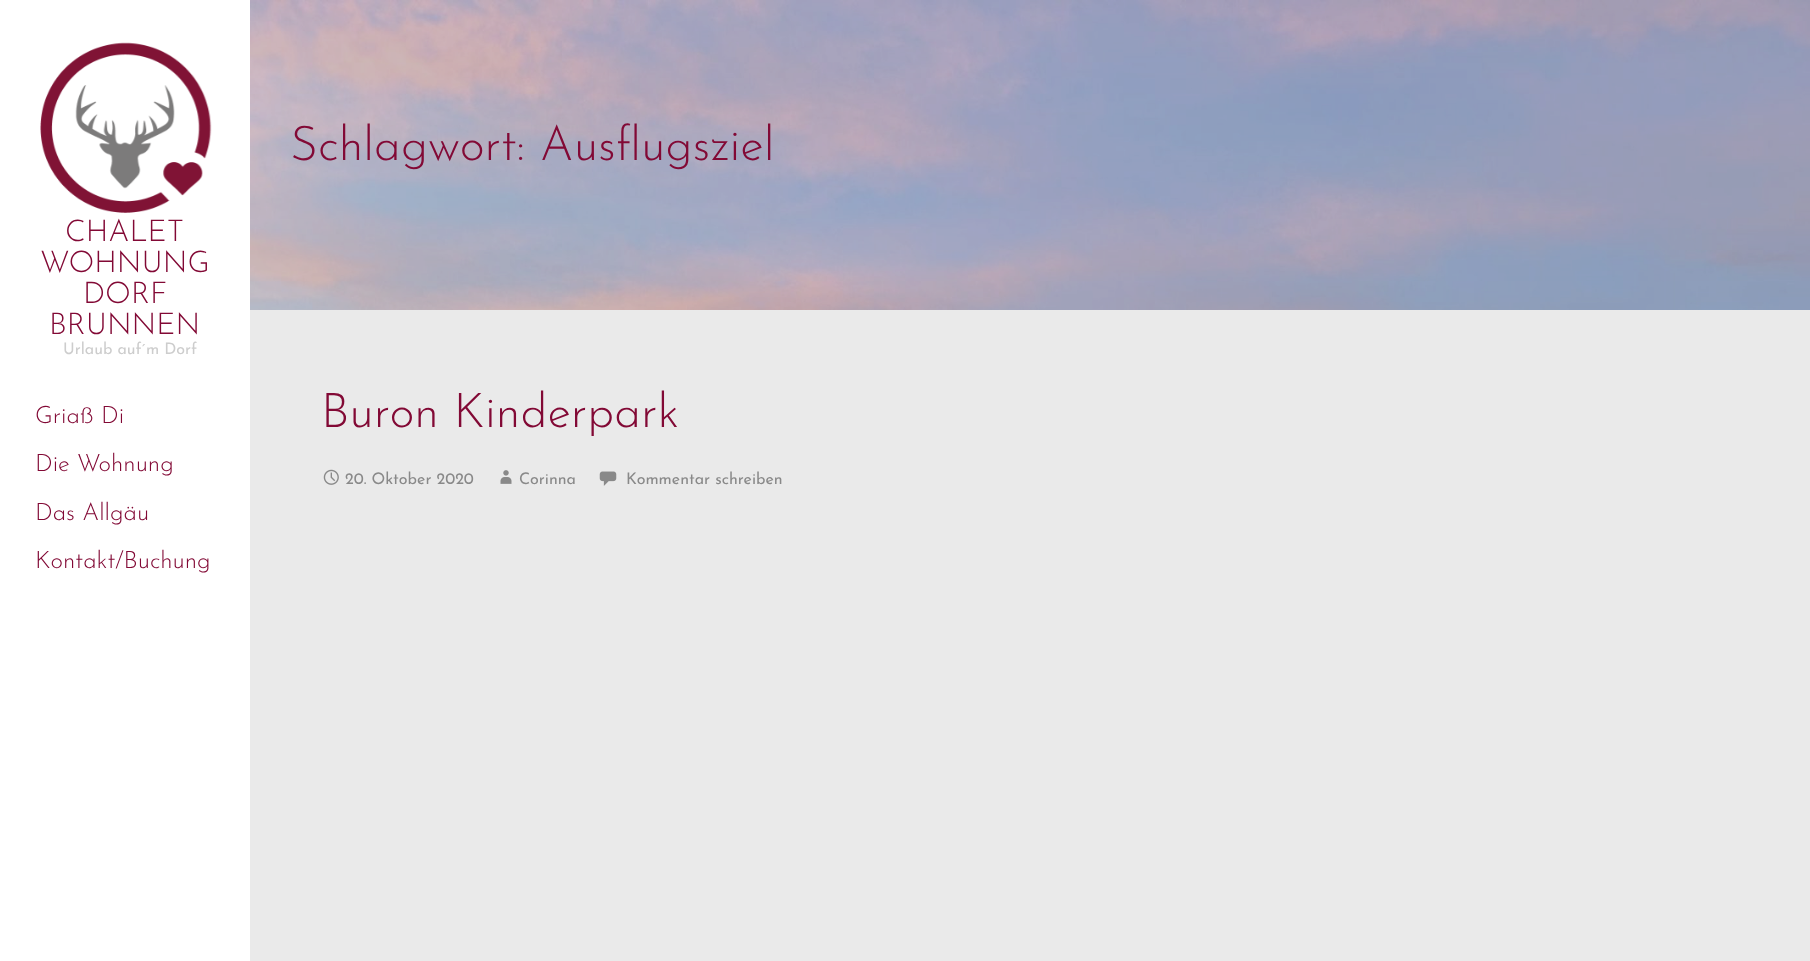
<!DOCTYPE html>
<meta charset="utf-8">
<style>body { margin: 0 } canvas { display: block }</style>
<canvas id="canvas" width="1810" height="961"></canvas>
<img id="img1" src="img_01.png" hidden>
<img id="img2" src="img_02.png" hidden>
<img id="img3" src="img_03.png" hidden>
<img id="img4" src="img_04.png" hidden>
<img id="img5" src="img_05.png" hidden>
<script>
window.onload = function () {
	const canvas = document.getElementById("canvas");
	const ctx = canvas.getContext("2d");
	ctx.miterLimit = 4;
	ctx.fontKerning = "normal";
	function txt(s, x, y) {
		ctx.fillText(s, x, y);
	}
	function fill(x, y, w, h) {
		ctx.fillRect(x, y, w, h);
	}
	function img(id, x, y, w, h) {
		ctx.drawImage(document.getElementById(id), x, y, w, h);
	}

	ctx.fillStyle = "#EAEAEA";
	fill(0, 0, 1810, 961);
	img("img1", 250, 0, 1560, 310);
	ctx.fillStyle = "#FFFFFF";
	fill(0, 0, 250, 961);
	img("img2", 40, 42, 172, 171);
	img("img3", 323, 469, 16, 16);
	img("img4", 500, 470, 12, 14);
	img("img5", 599, 471, 18, 15);
	ctx.font = "300 48px Josefin Sans";
	ctx.fillStyle = "#820935";
	txt("Schlagwort: Ausflugsziel", 290, 160);
	ctx.font = "300 30px Josefin Sans";
	txt("CHALET", 65, 241);
	txt("WOHNUNG", 40, 272);
	txt("DORF", 83, 303);
	txt("BRUNNEN", 49, 334);
	ctx.font = "16px Josefin Sans";
	ctx.fillStyle = "#CDCDCD";
	txt("Urlaub auf´m Dorf", 63, 354);
	ctx.font = "300 24px Josefin Sans";
	ctx.fillStyle = "#820935";
	txt("Griaß Di", 35, 423);
	txt("Die Wohnung", 35, 471);
	txt("Das Allgäu", 35, 520);
	txt("Kontakt/Buchung", 35, 568);
	ctx.font = "300 48px Josefin Sans";
	txt("Buron Kinderpark", 321, 427);
	ctx.font = "16px Josefin Sans";
	ctx.fillStyle = "#898989";
	txt("20. Oktober 2020", 345, 484);
	txt("Corinna", 519, 484);
	txt("Kommentar schreiben", 626, 484);
};
</script>
